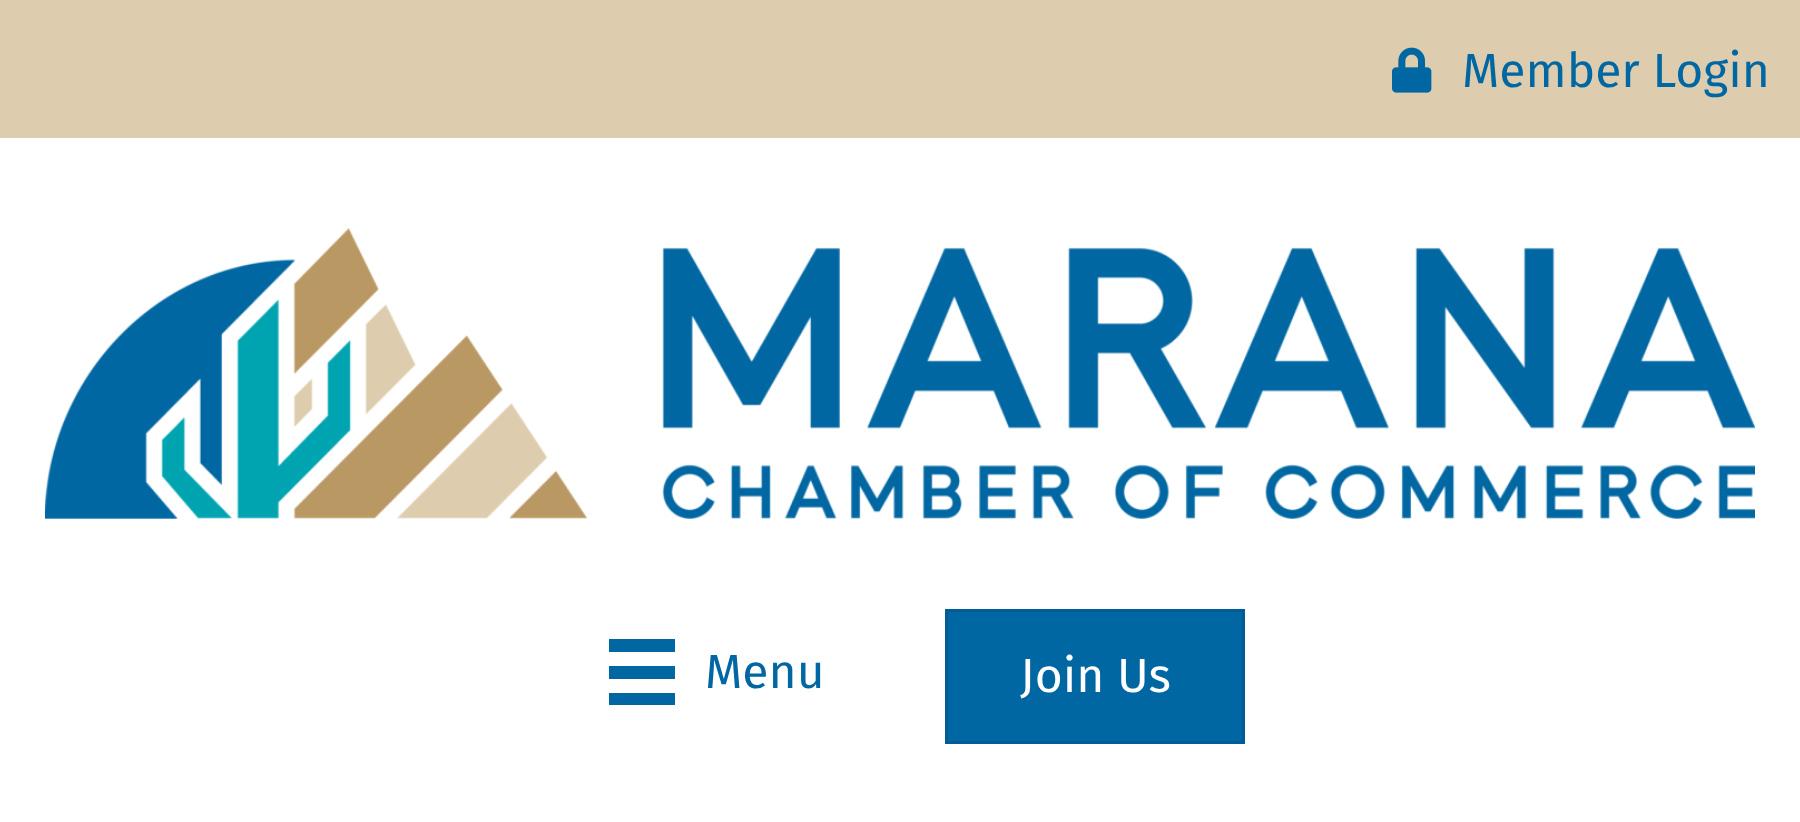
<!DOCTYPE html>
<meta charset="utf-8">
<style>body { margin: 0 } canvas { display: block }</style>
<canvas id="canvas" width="1800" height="822"></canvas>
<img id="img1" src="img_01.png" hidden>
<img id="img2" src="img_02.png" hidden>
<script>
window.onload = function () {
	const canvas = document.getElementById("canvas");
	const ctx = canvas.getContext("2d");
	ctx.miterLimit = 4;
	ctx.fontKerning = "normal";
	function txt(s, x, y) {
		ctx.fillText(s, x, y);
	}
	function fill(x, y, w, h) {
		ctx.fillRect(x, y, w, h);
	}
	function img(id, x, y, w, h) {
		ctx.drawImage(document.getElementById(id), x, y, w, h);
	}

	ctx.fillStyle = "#DDCDAE";
	fill(0, 0, 1800, 822);
	img("img1", 1392, 47, 40, 46);
	ctx.fillStyle = "#FFFFFF";
	fill(0, 138, 1800, 684);
	img("img2", 45, 228, 1710, 291);
	ctx.fillStyle = "#0067A2";
	fill(609, 639, 66, 13);
	fill(609, 666, 66, 13);
	fill(609, 693, 66, 12);
	ctx.beginPath();
	ctx.rect(946.5, 610.5, 297, 132);
	ctx.fill();
	ctx.strokeStyle = "#005B96";
	ctx.lineWidth = 3;
	ctx.stroke();
	ctx.font = "48px Fira Sans";
	txt("Member Login", 1462, 87);
	txt("Menu", 705, 688);
	ctx.fillStyle = "#FFFFFF";
	txt("Join Us", 1020, 692);
};
</script>
